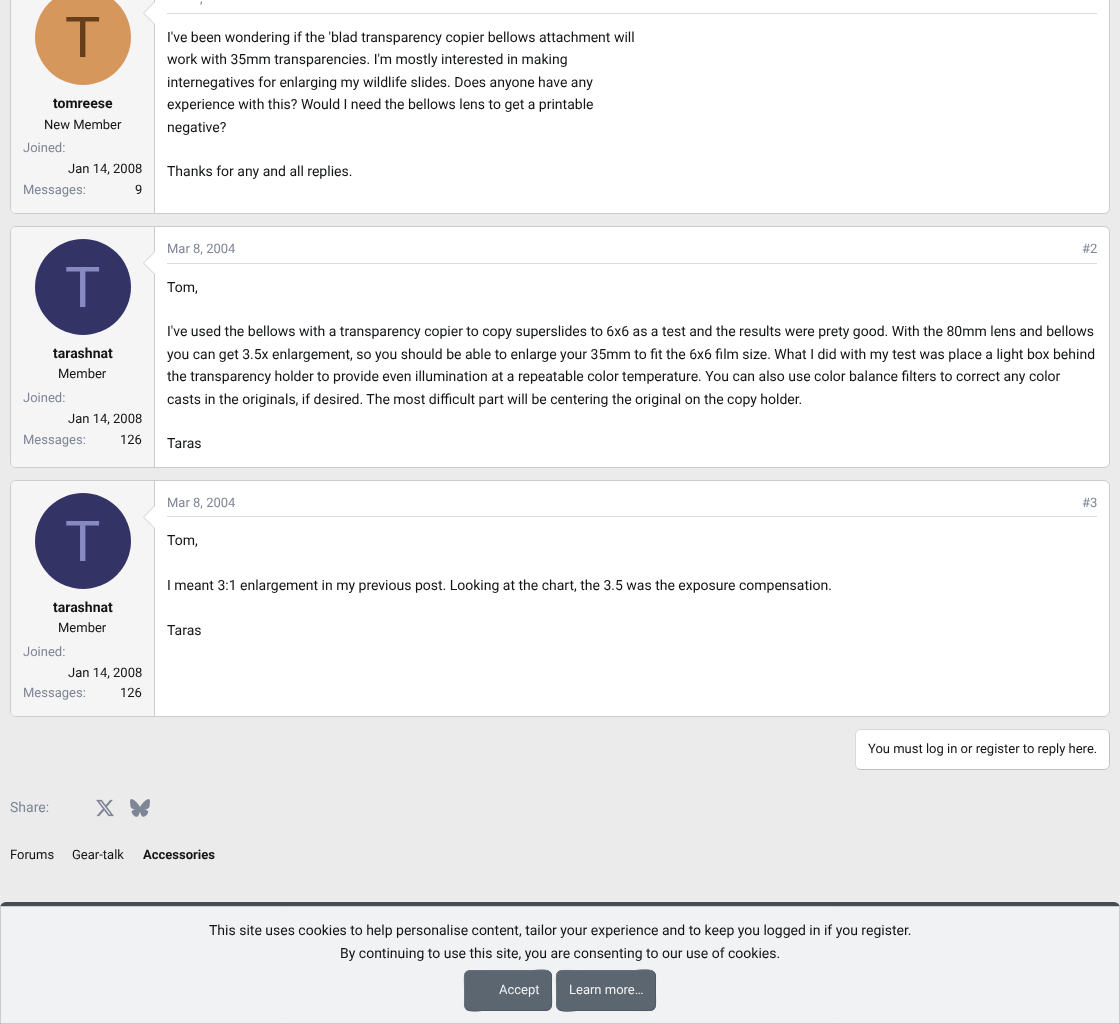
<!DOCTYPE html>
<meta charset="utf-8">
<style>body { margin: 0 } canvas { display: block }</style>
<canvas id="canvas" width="1120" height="1024"></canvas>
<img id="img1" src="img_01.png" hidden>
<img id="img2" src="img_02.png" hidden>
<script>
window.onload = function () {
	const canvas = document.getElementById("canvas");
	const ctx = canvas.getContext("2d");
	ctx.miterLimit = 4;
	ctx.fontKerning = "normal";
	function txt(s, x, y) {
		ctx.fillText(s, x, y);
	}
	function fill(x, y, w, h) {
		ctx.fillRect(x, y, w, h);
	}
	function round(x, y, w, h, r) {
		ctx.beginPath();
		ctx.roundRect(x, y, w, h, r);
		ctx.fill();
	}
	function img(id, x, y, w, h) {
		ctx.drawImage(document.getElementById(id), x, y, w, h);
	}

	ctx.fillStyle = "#EBEBEB";
	fill(0, 0, 1120, 1024);
	ctx.fillStyle = "#FFFFFF";
	ctx.beginPath();
	ctx.roundRect(10.5, -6.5, 1099, 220, 5.5);
	ctx.fill();
	ctx.strokeStyle = "#CCCCCC";
	ctx.stroke();
	ctx.fillStyle = "#F5F5F5";
	ctx.beginPath();
	ctx.moveTo(16, -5);
	ctx.lineTo(155, -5);
	ctx.lineTo(155, 213);
	ctx.lineTo(16, 213);
	ctx.bezierCurveTo(13, 213, 11, 211, 11, 208);
	ctx.lineTo(11, 0);
	ctx.bezierCurveTo(11, -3, 13, -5, 16, -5);
	ctx.closePath();
	ctx.fill();
	ctx.fillStyle = "#CCCCCC";
	fill(154, 0, 1, 213);
	ctx.beginPath();
	ctx.moveTo(155, 1);
	ctx.lineTo(155, 25);
	ctx.lineTo(143, 13);
	ctx.closePath();
	ctx.fill();
	ctx.fillStyle = "#FFFFFF";
	ctx.beginPath();
	ctx.moveTo(155, 2);
	ctx.lineTo(155, 24);
	ctx.lineTo(144, 13);
	ctx.closePath();
	ctx.fill();
	ctx.fillStyle = "#D6975C";
	ctx.beginPath();
	ctx.arc(83, 37, 48, 0, Math.PI * 2);
	ctx.fill();
	ctx.fillStyle = "#DBDBDB";
	fill(167, 13, 930, 1);
	ctx.fillStyle = "#FFFFFF";
	ctx.beginPath();
	ctx.roundRect(10.5, 226.5, 1099, 241, 5.5);
	ctx.fill();
	ctx.stroke();
	ctx.fillStyle = "#F5F5F5";
	ctx.beginPath();
	ctx.roundRect(11, 227, 144, 240, [5, 0, 0, 5]);
	ctx.fill();
	ctx.fillStyle = "#CCCCCC";
	fill(154, 227, 1, 240);
	ctx.beginPath();
	ctx.moveTo(155, 251);
	ctx.lineTo(155, 275);
	ctx.lineTo(143, 263);
	ctx.closePath();
	ctx.fill();
	ctx.fillStyle = "#FFFFFF";
	ctx.beginPath();
	ctx.moveTo(155, 252);
	ctx.lineTo(155, 274);
	ctx.lineTo(144, 263);
	ctx.closePath();
	ctx.fill();
	ctx.fillStyle = "#333366";
	ctx.beginPath();
	ctx.arc(83, 287, 48, 0, Math.PI * 2);
	ctx.fill();
	ctx.fillStyle = "#DBDBDB";
	fill(167, 263, 930, 1);
	ctx.fillStyle = "#FFFFFF";
	ctx.beginPath();
	ctx.roundRect(10.5, 480.5, 1099, 236, 5.5);
	ctx.fill();
	ctx.stroke();
	ctx.fillStyle = "#F5F5F5";
	ctx.beginPath();
	ctx.roundRect(11, 481, 144, 235, [5, 0, 0, 5]);
	ctx.fill();
	ctx.fillStyle = "#CCCCCC";
	fill(154, 481, 1, 235);
	ctx.beginPath();
	ctx.moveTo(155, 505);
	ctx.lineTo(155, 529);
	ctx.lineTo(143, 517);
	ctx.closePath();
	ctx.fill();
	ctx.fillStyle = "#FFFFFF";
	ctx.beginPath();
	ctx.moveTo(155, 506);
	ctx.lineTo(155, 528);
	ctx.lineTo(144, 517);
	ctx.closePath();
	ctx.fill();
	ctx.fillStyle = "#333366";
	ctx.beginPath();
	ctx.arc(83, 541, 48, 0, Math.PI * 2);
	ctx.fill();
	ctx.fillStyle = "#DBDBDB";
	fill(167, 516, 930, 1);
	ctx.fillStyle = "#FFFFFF";
	round(855, 729, 255, 41, 6);
	ctx.beginPath();
	ctx.moveTo(1108, 731);
	ctx.bezierCurveTo(1109, 732, 1109.5, 733.5, 1109.5, 735);
	ctx.lineTo(1109.5, 764);
	ctx.bezierCurveTo(1109.5, 765.5, 1109, 767, 1108, 768);
	ctx.bezierCurveTo(1107, 769, 1105.5, 769.5, 1104, 769.5);
	ctx.lineTo(861, 769.5);
	ctx.bezierCurveTo(859.5, 769.5, 858, 769, 857, 768);
	ctx.strokeStyle = "#BFBFBF";
	ctx.stroke();
	ctx.beginPath();
	ctx.moveTo(857, 768);
	ctx.bezierCurveTo(856, 767, 855.5, 765.5, 855.5, 764);
	ctx.lineTo(855.5, 735);
	ctx.bezierCurveTo(855.5, 733.5, 856, 732, 857, 731);
	ctx.bezierCurveTo(858, 730, 859.5, 729.5, 861, 729.5);
	ctx.lineTo(1104, 729.5);
	ctx.bezierCurveTo(1105.5, 729.5, 1107, 730, 1108, 731);
	ctx.strokeStyle = "#D9D9D9";
	ctx.stroke();
	img("img1", 96, 799, 18, 18);
	img("img2", 130, 799, 20, 18);
	ctx.fillStyle = "#454D54";
	round(0, 902, 1120, 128, 6);
	ctx.fillStyle = "#F1F2F4";
	ctx.beginPath();
	ctx.rect(0.5, 906.5, 1119, 117);
	ctx.fill();
	ctx.strokeStyle = "#CCCCCC";
	ctx.stroke();
	ctx.fillStyle = "#5C6670";
	round(464, 970, 88, 41, 6);
	ctx.beginPath();
	ctx.moveTo(550, 972);
	ctx.bezierCurveTo(552, 974.5, 551.5, 978, 551.5, 981);
	ctx.lineTo(551.5, 990.5);
	ctx.bezierCurveTo(551.5, 1011.5, 554.5, 1010.5, 533.5, 1010.5);
	ctx.lineTo(482.5, 1010.5);
	ctx.bezierCurveTo(481, 1010.5, 469.5, 1012.5, 466, 1009);
	ctx.strokeStyle = "#505962";
	ctx.stroke();
	ctx.beginPath();
	ctx.moveTo(466, 1009);
	ctx.bezierCurveTo(464, 1006.5, 464.5, 1003, 464.5, 1000);
	ctx.lineTo(464.5, 990.5);
	ctx.bezierCurveTo(464.5, 969.5, 461.5, 970.5, 482.5, 970.5);
	ctx.lineTo(533.5, 970.5);
	ctx.bezierCurveTo(535, 970.5, 546.5, 968.5, 550, 972);
	ctx.strokeStyle = "#67737E";
	ctx.stroke();
	round(556, 970, 100, 41, 6);
	ctx.beginPath();
	ctx.moveTo(654, 972);
	ctx.bezierCurveTo(656, 974.5, 655.5, 978, 655.5, 981);
	ctx.lineTo(655.5, 990.5);
	ctx.bezierCurveTo(655.5, 1013, 658.5, 1010.5, 635.5, 1010.5);
	ctx.lineTo(576.5, 1010.5);
	ctx.bezierCurveTo(576, 1010.5, 562, 1013, 558, 1009);
	ctx.strokeStyle = "#505962";
	ctx.stroke();
	ctx.beginPath();
	ctx.moveTo(558, 1009);
	ctx.bezierCurveTo(556, 1006.5, 556.5, 1003, 556.5, 1000);
	ctx.lineTo(556.5, 990.5);
	ctx.bezierCurveTo(556.5, 968, 553.5, 970.5, 576.5, 970.5);
	ctx.lineTo(635.5, 970.5);
	ctx.bezierCurveTo(636, 970.5, 650, 968, 654, 972);
	ctx.strokeStyle = "#67737E";
	ctx.stroke();
	ctx.font = "58px Liberation Sans";
	ctx.fillStyle = "#663E1A";
	txt("T", 65, 57);
	ctx.font = "bold 14px Roboto";
	ctx.fillStyle = "#121416";
	txt("tomreese", 53, 108);
	ctx.font = "13px Roboto";
	txt("New Member", 44, 129);
	ctx.fillStyle = "#7E8595";
	txt("Joined:", 23, 152);
	ctx.fillStyle = "#121416";
	txt("Jan 14, 2008", 68, 173);
	ctx.fillStyle = "#7E8595";
	txt("Messages:", 23, 194);
	ctx.fillStyle = "#121416";
	txt("9", 135, 194);
	ctx.fillStyle = "#7E8595";
	txt(",", 200, 3);
	ctx.font = "14px Roboto";
	ctx.fillStyle = "#121416";
	txt("I've been wondering if the 'blad transparency copier bellows attachment will", 167, 42);
	txt("work with 35mm transparencies. I'm mostly interested in making", 167, 64);
	txt("internegatives for enlarging my wildlife slides. Does anyone have any", 167, 87);
	txt("experience with this? Would I need the bellows lens to get a printable", 167, 109);
	txt("negative?", 167, 132);
	txt("Thanks for any and all replies.", 167, 176);
	ctx.font = "58px Liberation Sans";
	ctx.fillStyle = "#8888C3";
	txt("T", 65, 307);
	ctx.font = "bold 14px Roboto";
	ctx.fillStyle = "#121416";
	txt("tarashnat", 53, 358);
	ctx.font = "13px Roboto";
	txt("Member", 58, 378);
	ctx.fillStyle = "#7E8595";
	txt("Joined:", 23, 402);
	ctx.fillStyle = "#121416";
	txt("Jan 14, 2008", 68, 423);
	ctx.fillStyle = "#7E8595";
	txt("Messages:", 23, 444);
	ctx.fillStyle = "#121416";
	txt("126", 120, 444);
	ctx.fillStyle = "#7E8595";
	txt("Mar 8, 2004", 167, 253);
	txt("#2", 1082, 253);
	ctx.font = "14px Roboto";
	ctx.fillStyle = "#121416";
	txt("Tom,", 167, 292);
	txt("I've used the bellows with a transparency copier to copy superslides to 6x6 as a test and the results were prety good. With the 80mm lens and bellows", 167, 336);
	txt("you can get 3.5x enlargement, so you should be able to enlarge your 35mm to fit the 6x6 film size. What I did with my test was place a light box behind", 167, 359);
	txt("the transparency holder to provide even illumination at a repeatable color temperature. You can also use color balance filters to correct any color", 167, 381);
	txt("casts in the originals, if desired. The most difficult part will be centering the original on the copy holder.", 167, 404);
	txt("Taras", 167, 448);
	ctx.font = "58px Liberation Sans";
	ctx.fillStyle = "#8888C3";
	txt("T", 65, 561);
	ctx.font = "bold 14px Roboto";
	ctx.fillStyle = "#121416";
	txt("tarashnat", 53, 612);
	ctx.font = "13px Roboto";
	txt("Member", 58, 632);
	ctx.fillStyle = "#7E8595";
	txt("Joined:", 23, 656);
	ctx.fillStyle = "#121416";
	txt("Jan 14, 2008", 68, 677);
	ctx.fillStyle = "#7E8595";
	txt("Messages:", 23, 697);
	ctx.fillStyle = "#121416";
	txt("126", 120, 697);
	ctx.fillStyle = "#7E8595";
	txt("Mar 8, 2004", 167, 507);
	txt("#3", 1082, 507);
	ctx.font = "14px Roboto";
	ctx.fillStyle = "#121416";
	txt("Tom,", 167, 545);
	txt("I meant 3:1 enlargement in my previous post. Looking at the chart, the 3.5 was the exposure compensation.", 167, 590);
	txt("Taras", 167, 635);
	ctx.font = "13px Roboto";
	txt("You must log in or register to reply here.", 868, 753);
	ctx.font = "14px Roboto";
	ctx.fillStyle = "#7E8595";
	txt("Share:", 10, 812);
	ctx.font = "13px Roboto";
	ctx.fillStyle = "#121416";
	txt("Forums", 10, 859);
	txt("Gear-talk", 72, 859);
	ctx.font = "bold 13px Roboto";
	txt("Accessories", 143, 859);
	ctx.font = "14px Roboto";
	txt("This site uses cookies to help personalise content, tailor your experience and to keep you logged in if you register.", 209, 935);
	txt("By continuing to use this site, you are consenting to our use of cookies.", 340, 958);
	ctx.font = "13px Roboto";
	ctx.fillStyle = "#F1F2F4";
	txt("Accept", 499, 994);
	txt("Learn more…", 569, 994);
};
</script>
